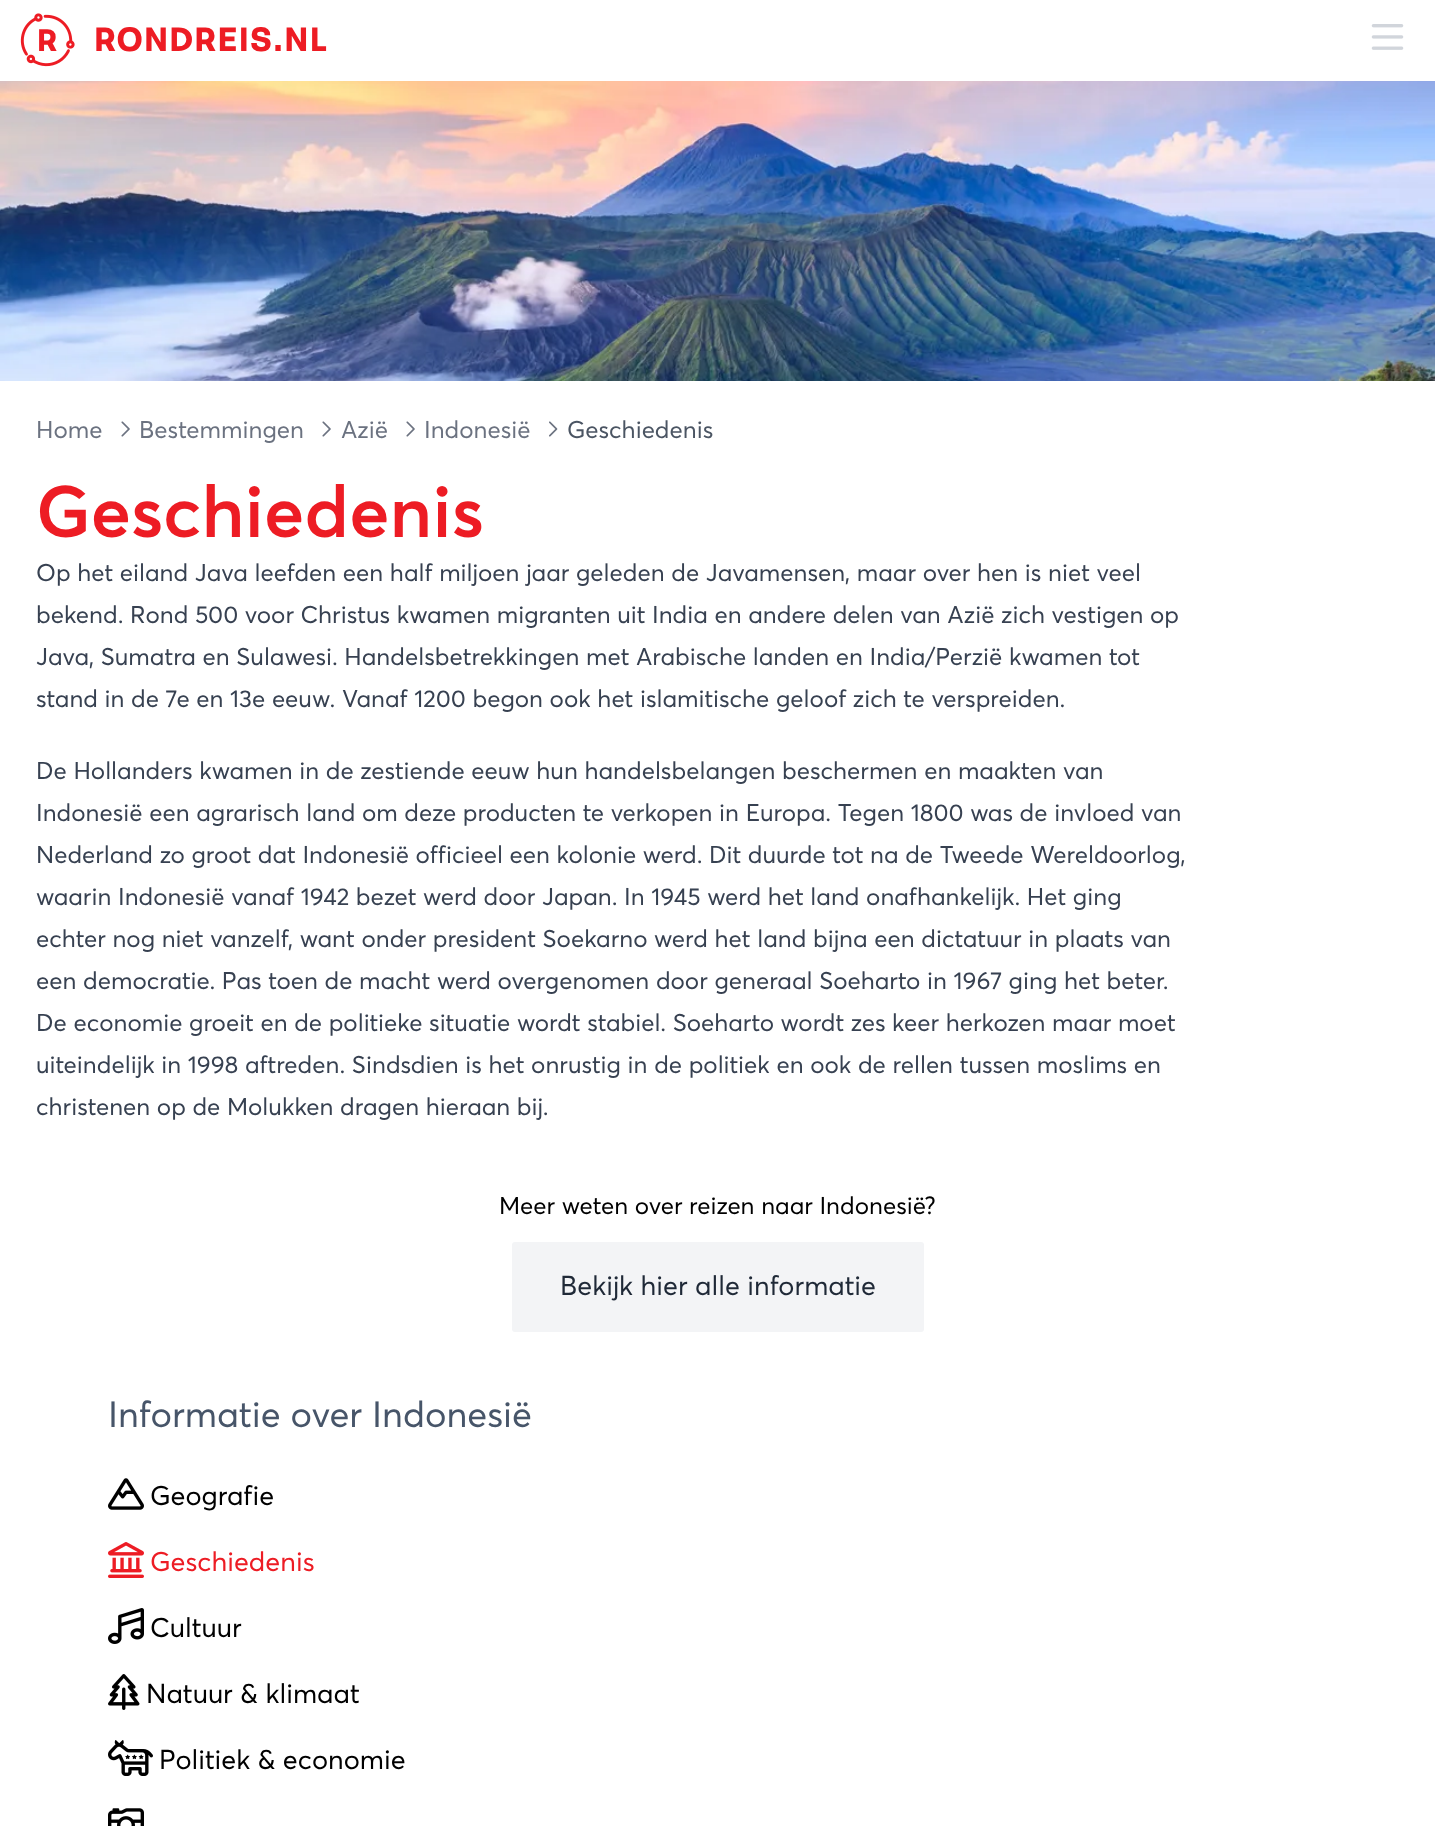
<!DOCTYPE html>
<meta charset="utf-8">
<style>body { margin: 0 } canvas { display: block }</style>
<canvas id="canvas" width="1435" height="1826"></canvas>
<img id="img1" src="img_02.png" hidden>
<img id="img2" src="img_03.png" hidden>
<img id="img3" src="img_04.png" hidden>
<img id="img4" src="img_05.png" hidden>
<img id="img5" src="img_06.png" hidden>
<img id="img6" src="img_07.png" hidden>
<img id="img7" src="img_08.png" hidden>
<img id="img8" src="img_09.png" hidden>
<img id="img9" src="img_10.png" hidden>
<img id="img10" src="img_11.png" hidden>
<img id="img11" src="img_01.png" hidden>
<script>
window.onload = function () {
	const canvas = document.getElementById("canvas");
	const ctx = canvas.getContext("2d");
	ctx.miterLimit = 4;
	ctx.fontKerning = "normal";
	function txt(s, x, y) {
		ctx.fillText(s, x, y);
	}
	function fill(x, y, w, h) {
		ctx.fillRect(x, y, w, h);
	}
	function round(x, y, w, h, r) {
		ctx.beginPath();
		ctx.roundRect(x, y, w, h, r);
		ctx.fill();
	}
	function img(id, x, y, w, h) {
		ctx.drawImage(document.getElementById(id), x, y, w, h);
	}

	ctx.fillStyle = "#FFFFFF";
	fill(0, 0, 1435, 1826);
	img("img1", 1371, 24, 33, 26);
	img("img2", 0, 81, 1435, 300);
	img("img3", 121, 421, 9, 16);
	img("img3", 322, 421, 9, 16);
	img("img3", 406, 421, 9, 16);
	img("img4", 549, 421, 9, 16);
	ctx.fillStyle = "#F3F4F6";
	round(512, 1242, 412, 90, 3);
	img("img5", 108, 1478, 36, 32);
	img("img6", 108, 1542, 36, 36);
	img("img7", 108, 1608, 36, 36);
	img("img8", 108, 1674, 32, 36);
	img("img9", 108, 1740, 45, 36);
	img("img10", 108, 1808, 36, 18);
	ctx.font = "31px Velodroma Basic";
	ctx.fillStyle = "#ED1C24";
	txt("R", 36, 51);
	img("img11", 20, 13, 55, 54);
	ctx.letterSpacing = "-0.75px";
	ctx.font = "33.5px Velodroma Basic";
	txt("RONDREIS.NL", 93, 51);
	ctx.letterSpacing = "0px";
	ctx.font = "24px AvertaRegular";
	ctx.fillStyle = "#6B7280";
	txt("Home", 36, 438);
	txt("Bestemmingen", 139, 438);
	txt("Azië", 341, 438);
	txt("Indonesië", 424, 438);
	ctx.fillStyle = "#4B5563";
	txt("Geschiedenis", 567, 438);
	ctx.font = "600 72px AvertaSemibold";
	ctx.fillStyle = "#ED1C24";
	txt("Geschiedenis", 36, 537);
	ctx.font = "24px AvertaRegular";
	ctx.fillStyle = "#374151";
	txt("Op het eiland Java leefden een half miljoen jaar geleden de Javamensen, maar over hen is niet veel", 36, 581);
	txt("bekend. Rond 500 voor Christus kwamen migranten uit India en andere delen van Azië zich vestigen op", 36, 623);
	txt("Java, Sumatra en Sulawesi. Handelsbetrekkingen met Arabische landen en India/Perzië kwamen tot", 36, 665);
	txt("stand in de 7e en 13e eeuw. Vanaf 1200 begon ook het islamitische geloof zich te verspreiden.", 36, 707);
	txt("De Hollanders kwamen in de zestiende eeuw hun handelsbelangen beschermen en maakten van", 36, 779);
	txt("Indonesië een agrarisch land om deze producten te verkopen in Europa. Tegen 1800 was de invloed van", 36, 821);
	txt("Nederland zo groot dat Indonesië officieel een kolonie werd. Dit duurde tot na de Tweede Wereldoorlog,", 36, 863);
	txt("waarin Indonesië vanaf 1942 bezet werd door Japan. In 1945 werd het land onafhankelijk. Het ging", 36, 905);
	txt("echter nog niet vanzelf, want onder president Soekarno werd het land bijna een dictatuur in plaats van", 36, 947);
	txt("een democratie. Pas toen de macht werd overgenomen door generaal Soeharto in 1967 ging het beter.", 36, 989);
	txt("De economie groeit en de politieke situatie wordt stabiel. Soeharto wordt zes keer herkozen maar moet", 36, 1031);
	txt("uiteindelijk in 1998 aftreden. Sindsdien is het onrustig in de politiek en ook de rellen tussen moslims en", 36, 1073);
	txt("christenen op de Molukken dragen hieraan bij.", 36, 1115);
	ctx.fillStyle = "#000000";
	txt("Meer weten over reizen naar Indonesië?", 499, 1214);
	ctx.font = "27px AvertaRegular";
	ctx.fillStyle = "#1F2937";
	txt("Bekijk hier alle informatie", 560, 1295);
	ctx.font = "36px AvertaRegular";
	ctx.fillStyle = "#475569";
	txt("Informatie over Indonesië", 108, 1427);
	ctx.font = "27px AvertaRegular";
	ctx.fillStyle = "#000000";
	txt("Geografie", 150, 1505);
	ctx.fillStyle = "#ED1C24";
	txt("Geschiedenis", 150, 1571);
	ctx.fillStyle = "#000000";
	txt("Cultuur", 150, 1637);
	txt("Natuur & klimaat", 146, 1703);
	txt("Politiek & economie", 159, 1769);
};
</script>
